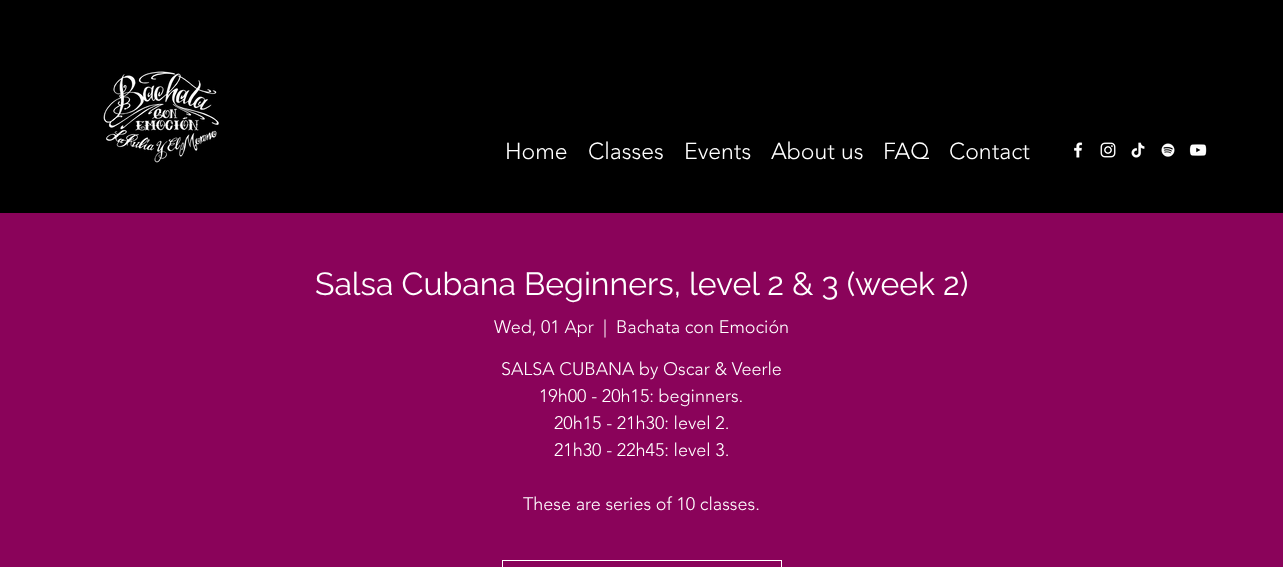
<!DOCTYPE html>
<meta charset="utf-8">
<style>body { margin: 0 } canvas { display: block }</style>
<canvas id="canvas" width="1283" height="567"></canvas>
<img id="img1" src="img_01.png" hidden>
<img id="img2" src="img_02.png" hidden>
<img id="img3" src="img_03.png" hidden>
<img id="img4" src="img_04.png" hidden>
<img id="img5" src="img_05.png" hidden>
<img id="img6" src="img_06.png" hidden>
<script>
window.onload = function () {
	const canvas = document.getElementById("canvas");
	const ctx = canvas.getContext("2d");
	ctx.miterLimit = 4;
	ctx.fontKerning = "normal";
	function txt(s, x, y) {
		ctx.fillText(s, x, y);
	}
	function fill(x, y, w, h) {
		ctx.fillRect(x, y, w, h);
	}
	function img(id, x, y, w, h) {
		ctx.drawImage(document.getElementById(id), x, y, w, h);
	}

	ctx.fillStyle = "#8A035A";
	fill(0, 0, 1283, 567);
	ctx.fillStyle = "#000000";
	fill(0, 0, 1283, 213);
	img("img1", 103, 71, 116, 92);
	img("img2", 1074, 142, 9, 16);
	img("img3", 1100, 142, 16, 16);
	img("img4", 1131, 142, 14, 16);
	img("img5", 1161, 143, 14, 14);
	img("img6", 1189, 144, 18, 12);
	ctx.strokeStyle = "#FFFFFF";
	ctx.strokeRect(502.5, 560.5, 279, 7);
	ctx.font = "300 23px 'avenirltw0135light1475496'";
	ctx.fillStyle = "#FFFFFF";
	txt("Home", 505, 159);
	txt("Classes", 588, 159);
	txt("Events", 684, 159);
	txt("About us", 771, 159);
	txt("FAQ", 883, 159);
	txt("Contact", 949, 159);
	ctx.font = "32px Raleway";
	txt("Salsa Cubana Beginners, level 2 & 3 (week 2)", 315, 295);
	ctx.font = "300 18px 'avenirltw0135light1475496'";
	txt("Wed, 01 Apr", 494, 333);
	txt("|", 603, 333);
	txt("Bachata con Emoción", 616, 333);
	txt("SALSA CUBANA by Oscar & Veerle", 501, 375);
	txt("19h00 - 20h15: beginners.", 539, 402);
	txt("20h15 - 21h30: level 2.", 554, 429);
	txt("21h30 - 22h45: level 3.", 554, 456);
	txt("These are series of 10 classes.", 523, 510);
};
</script>
